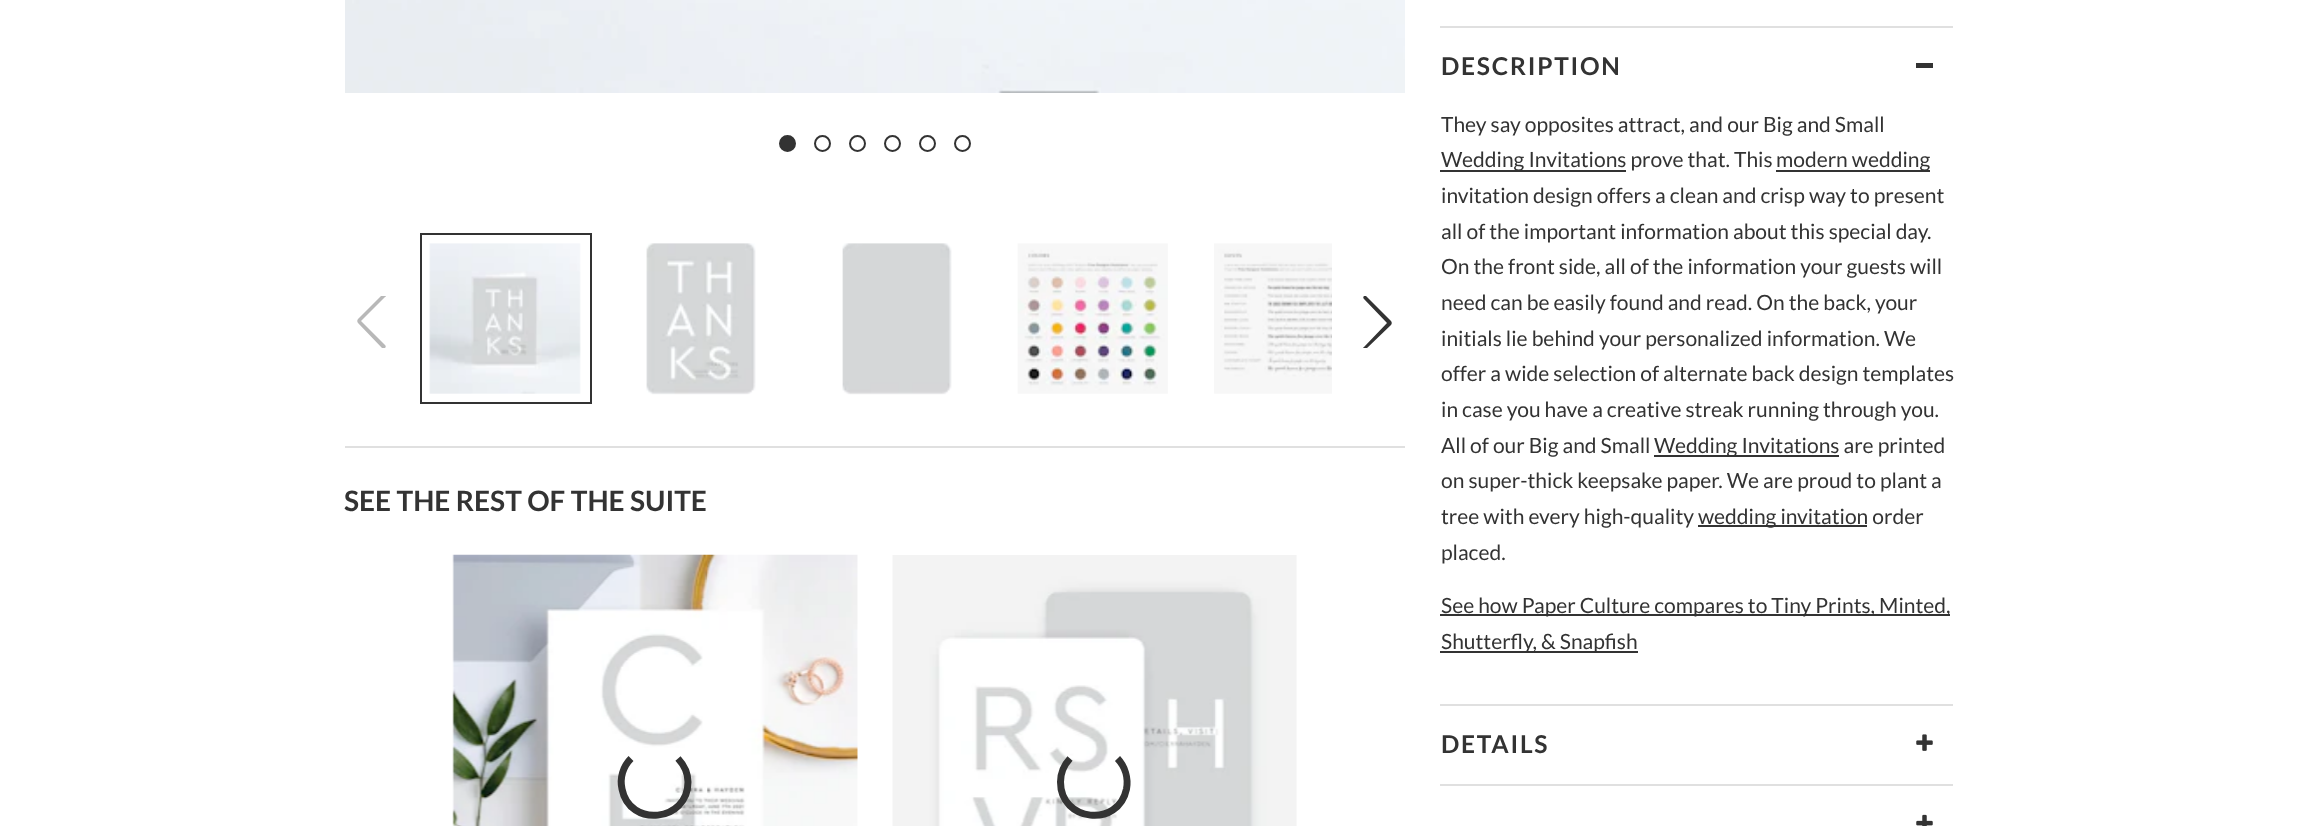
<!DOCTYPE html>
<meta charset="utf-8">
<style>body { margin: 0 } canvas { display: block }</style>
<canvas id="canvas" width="2297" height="826"></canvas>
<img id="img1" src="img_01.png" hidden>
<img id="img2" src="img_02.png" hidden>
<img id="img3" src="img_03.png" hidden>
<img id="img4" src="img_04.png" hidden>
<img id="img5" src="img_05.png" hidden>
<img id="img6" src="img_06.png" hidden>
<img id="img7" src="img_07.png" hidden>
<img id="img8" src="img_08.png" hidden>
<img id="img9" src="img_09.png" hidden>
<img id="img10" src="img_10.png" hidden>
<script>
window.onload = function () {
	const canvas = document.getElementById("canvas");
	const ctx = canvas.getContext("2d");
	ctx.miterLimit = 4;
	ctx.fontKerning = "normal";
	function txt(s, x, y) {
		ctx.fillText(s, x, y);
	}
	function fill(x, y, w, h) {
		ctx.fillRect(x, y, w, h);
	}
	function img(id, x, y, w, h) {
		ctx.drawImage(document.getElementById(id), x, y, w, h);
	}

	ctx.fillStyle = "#FFFFFF";
	fill(0, 0, 2297, 826);
	img("img1", 345, 0, 1060, 93);
	ctx.fillStyle = "#333333";
	ctx.beginPath();
	ctx.arc(787.5, 143.5, 7.5, 0, Math.PI * 2);
	ctx.fill();
	ctx.strokeStyle = "#333333";
	ctx.lineWidth = 2;
	ctx.stroke();
	ctx.beginPath();
	ctx.arc(822.5, 143.5, 7.5, 0, Math.PI * 2);
	ctx.stroke();
	ctx.beginPath();
	ctx.arc(857.5, 143.5, 7.5, 0, Math.PI * 2);
	ctx.stroke();
	ctx.beginPath();
	ctx.arc(892.5, 143.5, 7.5, 0, Math.PI * 2);
	ctx.stroke();
	ctx.beginPath();
	ctx.arc(927.5, 143.5, 7.5, 0, Math.PI * 2);
	ctx.stroke();
	ctx.beginPath();
	ctx.arc(962.5, 143.5, 7.5, 0, Math.PI * 2);
	ctx.stroke();
	ctx.save();
	ctx.beginPath();
	ctx.rect(345, 296, 54, 52);
	ctx.clip();
	ctx.fillStyle = "#B8B8B8";
	ctx.beginPath();
	ctx.moveTo(385, 295);
	ctx.bezierCurveTo(386, 296, 386, 297, 385, 297);
	ctx.lineTo(361, 321);
	ctx.lineTo(385, 345);
	ctx.bezierCurveTo(386, 346, 386, 347, 385, 348);
	ctx.bezierCurveTo(384, 348, 383, 348, 382, 348);
	ctx.lineTo(358, 323);
	ctx.bezierCurveTo(357, 322, 357, 320, 358, 319);
	ctx.lineTo(382, 295);
	ctx.bezierCurveTo(383, 294, 384, 294, 385, 295);
	ctx.closePath();
	ctx.fill();
	ctx.restore();
	img("img2", 429, 243, 152, 151);
	ctx.strokeRect(421, 234, 170, 169);
	img("img3", 646, 243, 110, 152);
	img("img4", 842, 243, 110, 152);
	img("img5", 1017, 243, 151, 151);
	img("img6", 1214, 243, 118, 151);
	ctx.save();
	ctx.beginPath();
	ctx.rect(1351, 296, 54, 52);
	ctx.clip();
	ctx.beginPath();
	ctx.moveTo(1364, 349);
	ctx.bezierCurveTo(1363, 348, 1363, 347, 1364, 347);
	ctx.lineTo(1387, 323);
	ctx.lineTo(1364, 299);
	ctx.bezierCurveTo(1363, 298, 1363, 297, 1364, 296);
	ctx.bezierCurveTo(1364, 296, 1365, 296, 1366, 296);
	ctx.lineTo(1391, 321);
	ctx.bezierCurveTo(1392, 322, 1392, 324, 1391, 325);
	ctx.lineTo(1366, 349);
	ctx.bezierCurveTo(1365, 350, 1364, 350, 1364, 349);
	ctx.closePath();
	ctx.fill();
	ctx.restore();
	ctx.fillStyle = "#E0E0E0";
	fill(345, 446, 1060, 2);
	img("img7", 452, 554, 406, 272);
	ctx.beginPath();
	ctx.moveTo(678, 758.5);
	ctx.bezierCurveTo(684, 765, 688, 773.5, 688, 782);
	ctx.bezierCurveTo(688, 822, 629.5, 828, 622, 789);
	ctx.bezierCurveTo(619.5, 778, 623, 766.5, 631, 758.5);
	ctx.lineWidth = 7;
	ctx.stroke();
	img("img8", 892, 555, 405, 271);
	ctx.beginPath();
	ctx.moveTo(1117.5, 758.5);
	ctx.bezierCurveTo(1125, 766.5, 1128.5, 778, 1126.5, 789);
	ctx.bezierCurveTo(1118.5, 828, 1060.5, 822, 1060.5, 782);
	ctx.bezierCurveTo(1060.5, 773.5, 1064, 765, 1070, 758.5);
	ctx.stroke();
	fill(1440, 26, 513, 2);
	ctx.fillStyle = "#333333";
	fill(1916, 63, 17, 5);
	fill(1440, 170, 186, 2);
	fill(1776, 170, 154, 2);
	fill(1654, 455, 185, 2);
	fill(1698, 525, 169, 2);
	fill(1440, 614, 510, 2);
	fill(1440, 651, 198, 2);
	ctx.fillStyle = "#E0E0E0";
	fill(1440, 704, 513, 2);
	img("img9", 1916, 734, 17, 17);
	fill(1440, 784, 513, 2);
	img("img10", 1916, 814, 17, 12);
	ctx.font = "bold 28px Lato";
	ctx.fillStyle = "#333333";
	txt("SEE THE REST OF THE SUITE", 344, 511);
	ctx.letterSpacing = "1.75px";
	ctx.font = "bold 24.5px Lato";
	txt("DESCRIPTION", 1441, 75);
	ctx.letterSpacing = "0px";
	ctx.font = "21px Lato";
	txt("They say opposites attract, and our Big and Small", 1441, 132);
	txt("Wedding Invitations prove that. This", 1441, 167);
	txt("modern wedding", 1776, 167);
	txt("invitation design offers a clean and crisp way to present", 1441, 203);
	txt("all of the important information about this special day.", 1441, 239);
	txt("On the front side, all of the information your guests will", 1441, 274);
	txt("need can be easily found and read. On the back, your", 1441, 310);
	txt("initials lie behind your personalized information. We", 1441, 346);
	txt("offer a wide selection of alternate back design templates", 1441, 381);
	txt("in case you have a creative streak running through you.", 1441, 417);
	txt("All of our Big and Small", 1441, 453);
	txt("Wedding Invitations are printed", 1654, 453);
	txt("on super-thick keepsake paper. We are proud to plant a", 1441, 488);
	txt("tree with every high-quality", 1441, 524);
	txt("wedding invitation order", 1698, 524);
	txt("placed.", 1441, 560);
	txt("See how Paper Culture compares to Tiny Prints, Minted,", 1441, 613);
	txt("Shutterfly, & Snapfish", 1441, 649);
	ctx.letterSpacing = "1.75px";
	ctx.font = "bold 24.5px Lato";
	txt("DETAILS", 1441, 753);
};
</script>
